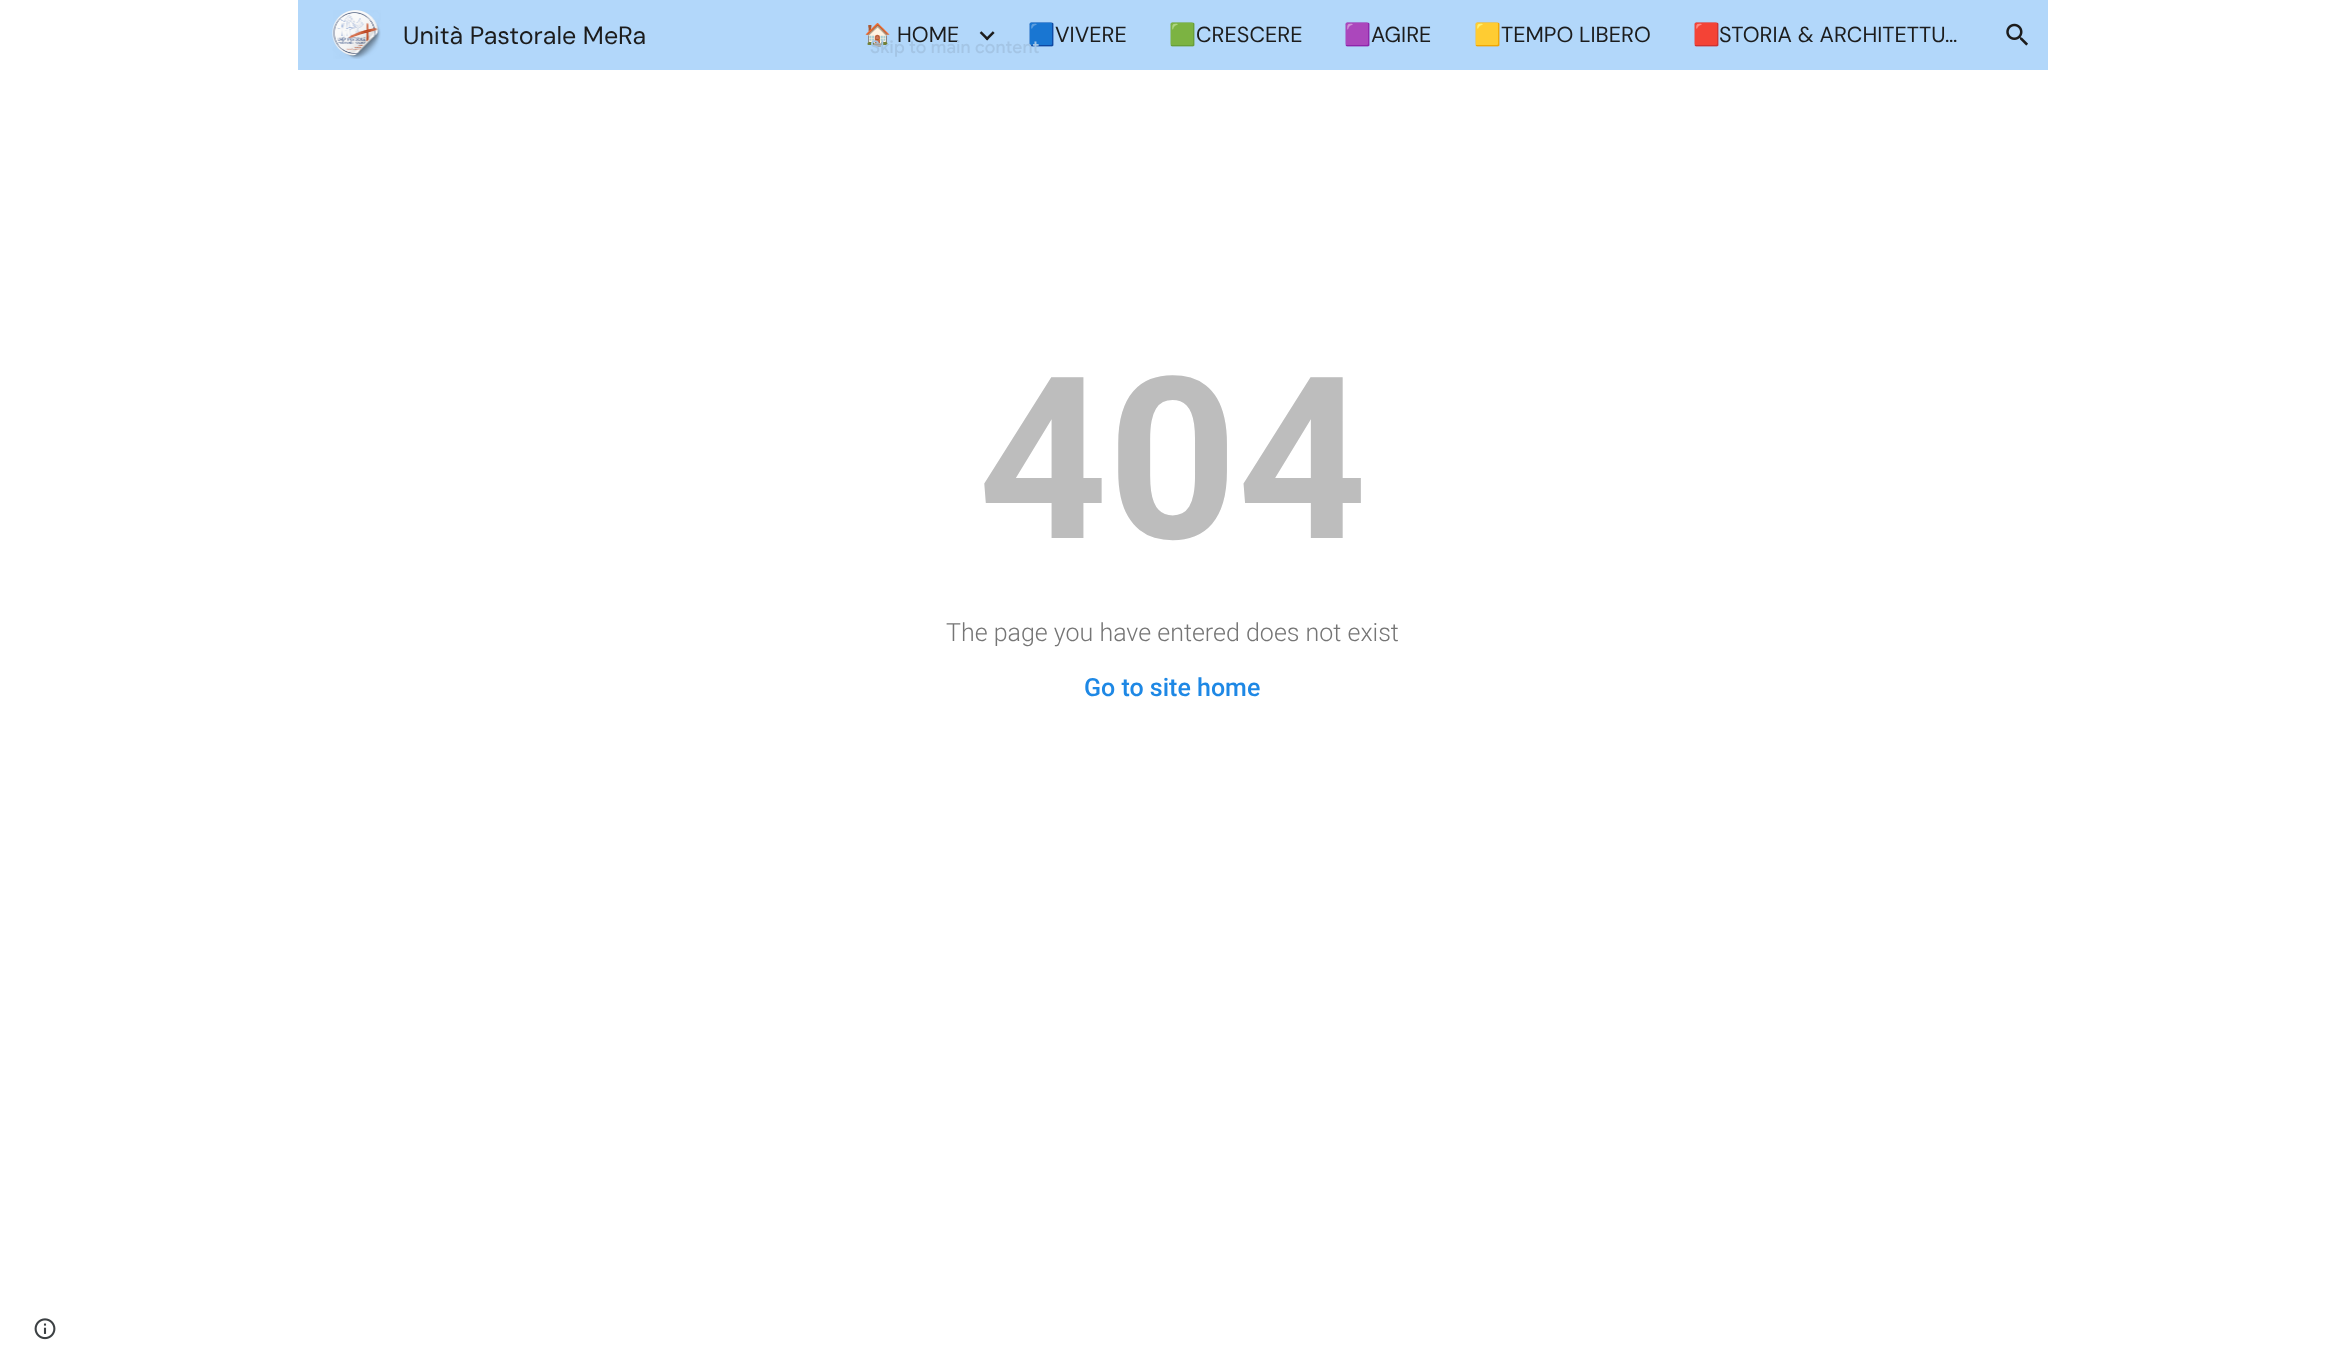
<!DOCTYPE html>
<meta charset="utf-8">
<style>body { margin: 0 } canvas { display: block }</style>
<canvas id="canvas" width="2344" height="1371"></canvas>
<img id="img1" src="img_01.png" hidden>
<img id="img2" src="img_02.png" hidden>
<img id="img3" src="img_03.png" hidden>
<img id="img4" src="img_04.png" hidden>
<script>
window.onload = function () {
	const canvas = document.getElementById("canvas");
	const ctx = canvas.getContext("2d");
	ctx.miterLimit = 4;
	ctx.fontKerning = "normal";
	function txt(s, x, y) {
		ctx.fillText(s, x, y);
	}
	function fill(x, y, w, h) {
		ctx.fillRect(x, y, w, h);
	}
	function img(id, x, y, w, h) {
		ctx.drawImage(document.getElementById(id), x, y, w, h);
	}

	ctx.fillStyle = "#FFFFFF";
	fill(0, 0, 2344, 1371);
	ctx.fillStyle = "#B2D7FA";
	fill(298, 0, 1750, 70);
	img("img1", 332, 10, 49, 49);
	img("img2", 979, 31, 16, 10);
	img("img3", 2006, 23, 22, 23);
	img("img4", 34, 1318, 22, 22);
	ctx.font = "25px DM Sans";
	ctx.fillStyle = "#1C1C1C";
	txt("Unità Pastorale MeRa", 403, 44);
	ctx.font = "21.75px Noto Color Emoji";
	txt("🏠", 864, 42);
	ctx.font = "21.75px DM Sans";
	txt("HOME", 897, 42);
	ctx.font = "21.75px Noto Color Emoji";
	txt("🟦", 1028, 42);
	ctx.font = "21.75px DM Sans";
	txt("VIVERE", 1055, 42);
	ctx.font = "21.75px Noto Color Emoji";
	txt("🟩", 1169, 42);
	ctx.font = "21.75px DM Sans";
	txt("CRESCERE", 1196, 42);
	ctx.font = "21.75px Noto Color Emoji";
	txt("🟪", 1344, 42);
	ctx.font = "21.75px DM Sans";
	txt("AGIRE", 1371, 42);
	ctx.font = "21.75px Noto Color Emoji";
	txt("🟨", 1474, 42);
	ctx.font = "21.75px DM Sans";
	txt("TEMPO LIBERO", 1501, 42);
	ctx.font = "21.75px Noto Color Emoji";
	txt("🟥", 1693, 42);
	ctx.font = "21.75px DM Sans";
	txt("STORIA & ARCHITETTU…", 1719, 42);
	ctx.font = "bold 226px Roboto";
	ctx.fillStyle = "#BDBDBD";
	txt("404", 978, 538);
	ctx.font = "300 25px Roboto";
	ctx.fillStyle = "#757575";
	txt("The page you have entered does not exist", 946, 641);
	ctx.font = "500 25px Roboto";
	ctx.fillStyle = "#1E88E5";
	txt("Go to site home", 1084, 696);
	ctx.letterSpacing = "0.2px";
	ctx.font = "500 17.5px Google Sans";
	ctx.fillStyle = "#A4C5E5";
	txt("Skip to main content", 870, 53);
};
</script>
